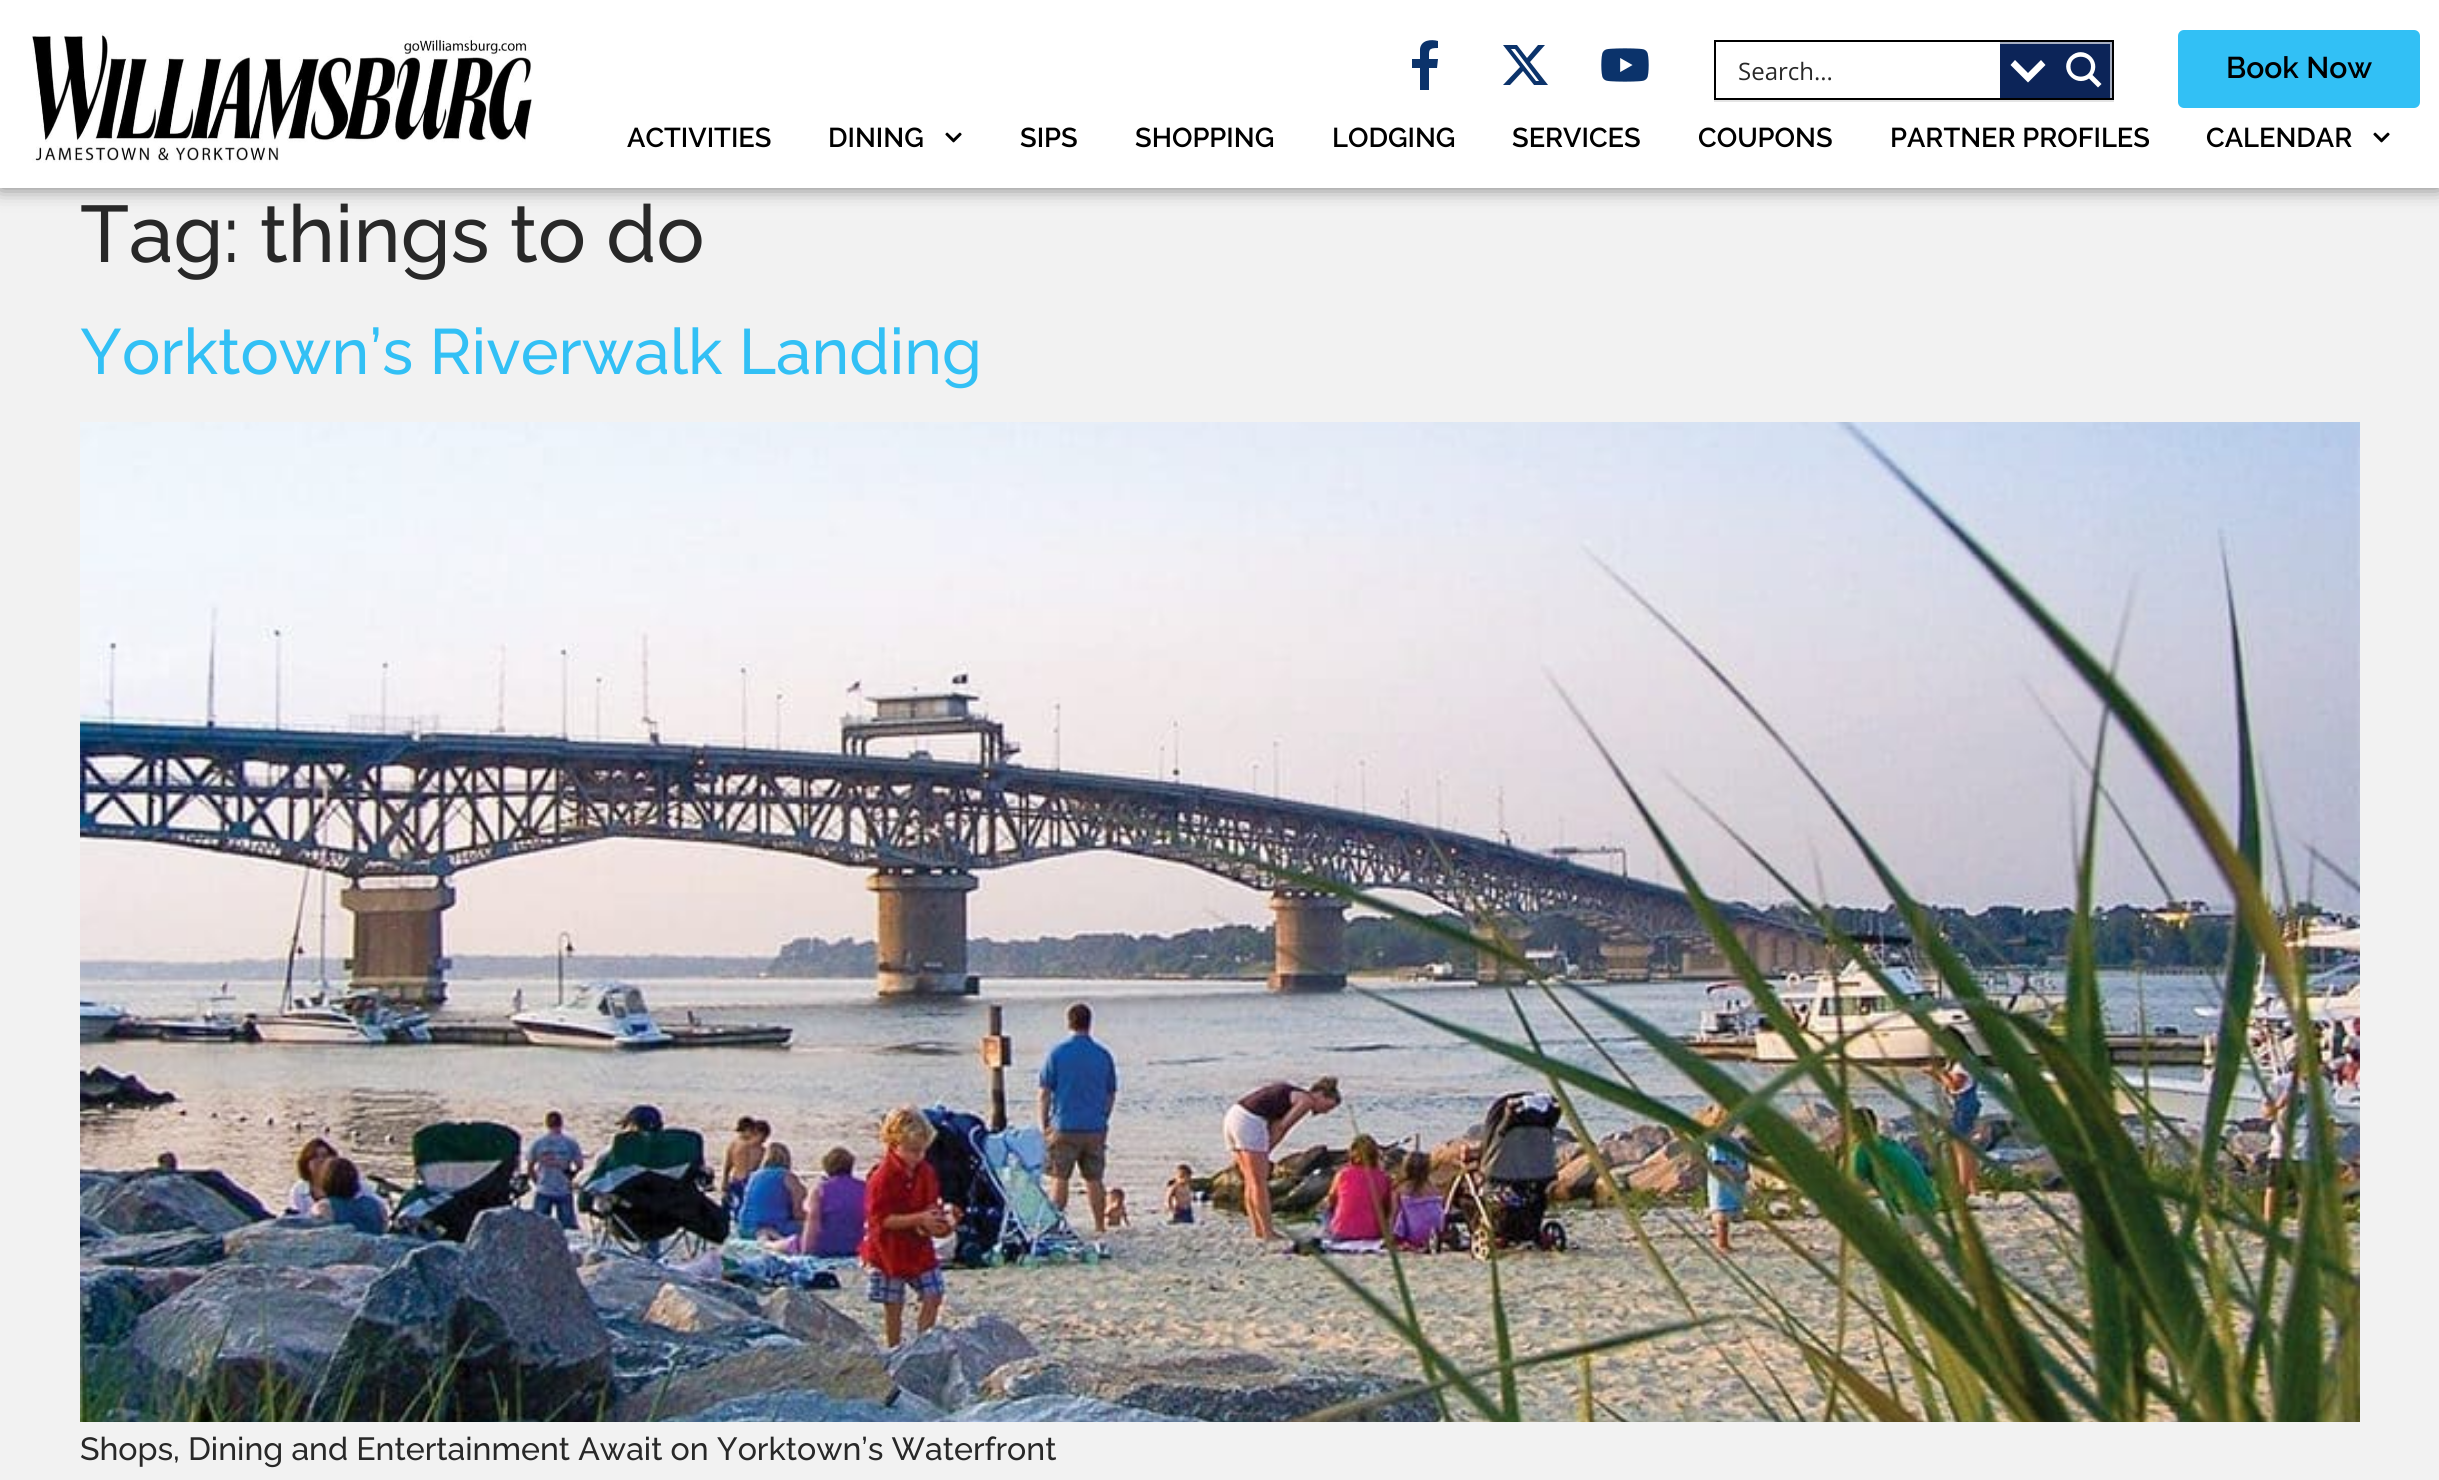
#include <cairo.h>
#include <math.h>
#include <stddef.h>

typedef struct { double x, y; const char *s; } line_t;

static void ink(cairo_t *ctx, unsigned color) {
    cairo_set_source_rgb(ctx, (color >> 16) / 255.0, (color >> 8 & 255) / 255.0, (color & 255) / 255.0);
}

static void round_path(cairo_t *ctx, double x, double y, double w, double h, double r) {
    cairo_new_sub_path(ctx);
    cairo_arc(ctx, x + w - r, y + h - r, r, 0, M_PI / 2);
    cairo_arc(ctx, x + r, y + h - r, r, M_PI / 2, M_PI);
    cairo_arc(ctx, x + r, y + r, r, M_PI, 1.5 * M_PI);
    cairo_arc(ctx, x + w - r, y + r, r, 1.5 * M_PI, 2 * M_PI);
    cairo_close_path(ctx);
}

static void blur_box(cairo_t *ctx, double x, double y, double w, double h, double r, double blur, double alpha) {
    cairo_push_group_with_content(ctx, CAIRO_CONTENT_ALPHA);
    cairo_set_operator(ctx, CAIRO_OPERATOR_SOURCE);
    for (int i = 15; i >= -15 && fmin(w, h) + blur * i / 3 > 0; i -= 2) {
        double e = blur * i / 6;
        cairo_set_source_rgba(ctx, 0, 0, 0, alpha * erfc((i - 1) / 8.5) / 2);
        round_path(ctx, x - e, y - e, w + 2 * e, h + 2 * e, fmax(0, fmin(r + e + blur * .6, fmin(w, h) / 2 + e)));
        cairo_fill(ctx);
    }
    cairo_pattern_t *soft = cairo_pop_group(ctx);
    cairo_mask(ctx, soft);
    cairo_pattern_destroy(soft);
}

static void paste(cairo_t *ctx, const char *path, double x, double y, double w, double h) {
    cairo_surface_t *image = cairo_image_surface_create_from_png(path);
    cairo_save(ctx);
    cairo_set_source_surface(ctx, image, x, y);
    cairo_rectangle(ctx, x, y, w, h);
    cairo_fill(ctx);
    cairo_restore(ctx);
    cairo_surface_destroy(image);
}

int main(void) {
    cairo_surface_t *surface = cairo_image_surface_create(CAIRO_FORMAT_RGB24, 2439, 1480);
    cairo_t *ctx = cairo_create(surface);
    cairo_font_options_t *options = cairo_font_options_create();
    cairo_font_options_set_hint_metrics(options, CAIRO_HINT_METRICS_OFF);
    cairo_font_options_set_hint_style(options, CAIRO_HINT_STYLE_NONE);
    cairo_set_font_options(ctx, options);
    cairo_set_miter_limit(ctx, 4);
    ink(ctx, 0xF2F2F2);
    cairo_paint(ctx);
    ink(ctx, 0x000000);
    blur_box(ctx, 0, 0, 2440, 188, 0, 10, 0.5);
    ink(ctx, 0xFFFFFF);
    cairo_rectangle(ctx, 0, 0, 2439, 188);
    cairo_fill(ctx);
    paste(ctx, "media/1.png", 32, 32, 500, 131);
    ink(ctx, 0x0B336B);
    cairo_new_path(ctx);
    cairo_move_to(ctx, 1437, 68);
    cairo_line_to(ctx, 1438, 59);
    cairo_line_to(ctx, 1429, 59);
    cairo_curve_to(ctx, 1429, 50, 1428, 48, 1438, 48);
    cairo_line_to(ctx, 1438, 41);
    cairo_curve_to(ctx, 1431, 39, 1421, 40, 1420, 49);
    cairo_line_to(ctx, 1420, 59);
    cairo_line_to(ctx, 1412, 59);
    cairo_line_to(ctx, 1412, 68);
    cairo_line_to(ctx, 1420, 68);
    cairo_line_to(ctx, 1420, 90);
    cairo_line_to(ctx, 1429, 90);
    cairo_line_to(ctx, 1429, 68);
    cairo_close_path(ctx);
    cairo_fill(ctx);
    cairo_new_path(ctx);
    cairo_move_to(ctx, 1538, 45);
    cairo_line_to(ctx, 1545, 45);
    cairo_line_to(ctx, 1530, 62);
    cairo_line_to(ctx, 1548, 85);
    cairo_line_to(ctx, 1534, 85);
    cairo_line_to(ctx, 1523, 71);
    cairo_line_to(ctx, 1510, 85);
    cairo_line_to(ctx, 1503, 85);
    cairo_line_to(ctx, 1520, 67);
    cairo_line_to(ctx, 1503, 45);
    cairo_line_to(ctx, 1517, 45);
    cairo_line_to(ctx, 1527, 58);
    cairo_close_path(ctx);
    cairo_move_to(ctx, 1536, 81);
    cairo_line_to(ctx, 1539, 81);
    cairo_line_to(ctx, 1515, 49);
    cairo_line_to(ctx, 1511, 49);
    cairo_close_path(ctx);
    cairo_fill(ctx);
    paste(ctx, "media/2.png", 1601, 48, 48, 34);
    ink(ctx, 0xE4E4E4);
    cairo_rectangle(ctx, 1714, 100, 400, 2);
    cairo_fill(ctx);
    cairo_rectangle(ctx, 1715, 41, 398, 58);
    ink(ctx, 0x000000);
    cairo_stroke(ctx);
    ink(ctx, 0x0C2458);
    cairo_rectangle(ctx, 2000, 44, 110, 54);
    cairo_fill(ctx);
    ink(ctx, 0xA8B0C3);
    cairo_rectangle(ctx, 2000, 42, 56, 2);
    cairo_fill(ctx);
    ink(ctx, 0xFFFFFF);
    cairo_new_path(ctx);
    cairo_move_to(ctx, 2041, 60);
    cairo_line_to(ctx, 2045.5, 65);
    cairo_line_to(ctx, 2028, 82.5);
    cairo_line_to(ctx, 2010.5, 65);
    cairo_line_to(ctx, 2015, 60);
    cairo_line_to(ctx, 2028, 73);
    cairo_close_path(ctx);
    cairo_fill(ctx);
    cairo_select_font_face(ctx, "Open Sans", CAIRO_FONT_SLANT_NORMAL, CAIRO_FONT_WEIGHT_NORMAL);
    cairo_set_font_size(ctx, 24);
    ink(ctx, 0x282828);
    cairo_move_to(ctx, 1738, 80);
    cairo_show_text(ctx, "Search...");
    cairo_save(ctx);
    cairo_rectangle(ctx, 2056, 42, 56, 56);
    cairo_clip(ctx);
    ink(ctx, 0xA8B0C3);
    cairo_set_fill_rule(ctx, CAIRO_FILL_RULE_EVEN_ODD);
    cairo_new_path(ctx);
    cairo_move_to(ctx, 1858, -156);
    cairo_line_to(ctx, 2310, -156);
    cairo_line_to(ctx, 2310, 296);
    cairo_line_to(ctx, 1858, 296);
    cairo_close_path(ctx);
    cairo_move_to(ctx, 2054, 44);
    cairo_line_to(ctx, 2110, 44);
    cairo_line_to(ctx, 2110, 100);
    cairo_line_to(ctx, 2054, 100);
    cairo_close_path(ctx);
    cairo_fill(ctx);
    cairo_restore(ctx);
    ink(ctx, 0xFFFFFF);
    cairo_new_path(ctx);
    cairo_move_to(ctx, 2101.5, 84);
    cairo_line_to(ctx, 2092.5, 75);
    cairo_curve_to(ctx, 2102.5, 61, 2083.5, 44, 2070.5, 56.5);
    cairo_curve_to(ctx, 2058, 69, 2075, 88, 2089, 78.5);
    cairo_line_to(ctx, 2098, 87.5);
    cairo_close_path(ctx);
    cairo_move_to(ctx, 2070.5, 66.5);
    cairo_curve_to(ctx, 2070.5, 53.5, 2091, 53.5, 2091, 66.5);
    cairo_curve_to(ctx, 2091, 80, 2070.5, 80, 2070.5, 66.5);
    cairo_close_path(ctx);
    cairo_fill(ctx);
    ink(ctx, 0x32C0F5);
    round_path(ctx, 2178, 30, 242, 78, 6);
    cairo_fill(ctx);
    cairo_select_font_face(ctx, "Raleway SemiBold", CAIRO_FONT_SLANT_NORMAL, CAIRO_FONT_WEIGHT_NORMAL);
    cairo_set_font_size(ctx, 30);
    ink(ctx, 0x000000);
    cairo_move_to(ctx, 2226, 78);
    cairo_show_text(ctx, "Book Now");
    cairo_set_font_size(ctx, 27.25);
    cairo_move_to(ctx, 627, 147);
    cairo_show_text(ctx, "ACTIVITIES");
    cairo_move_to(ctx, 828, 147);
    cairo_show_text(ctx, "DINING");
    paste(ctx, "media/3.png", 945, 132, 17, 11);
    {
        static const line_t items[] = {
            {1020, 147, "SIPS"},
            {1135, 147, "SHOPPING"},
            {1332, 147, "LODGING"},
            {1512, 147, "SERVICES"},
            {1698, 147, "COUPONS"},
            {1890, 147, "PARTNER PROFILES"},
            {2206, 147, "CALENDAR"},
        };
        for (size_t i = 0; i < sizeof items / sizeof *items; i++) {
            cairo_move_to(ctx, items[i].x, items[i].y);
            cairo_show_text(ctx, items[i].s);
        }
    }
    paste(ctx, "media/3.png", 2373, 132, 17, 11);
    cairo_select_font_face(ctx, "Raleway Medium", CAIRO_FONT_SLANT_NORMAL, CAIRO_FONT_WEIGHT_NORMAL);
    cairo_set_font_size(ctx, 80);
    ink(ctx, 0x282828);
    cairo_move_to(ctx, 80, 262);
    cairo_show_text(ctx, "Tag: things to do");
    cairo_set_font_size(ctx, 64);
    ink(ctx, 0x32C0F5);
    cairo_move_to(ctx, 80, 374);
    cairo_show_text(ctx, "Yorktown’s Riverwalk Landing");
    paste(ctx, "media/4.png", 80, 422, 2280, 1000);
    cairo_set_font_size(ctx, 32);
    ink(ctx, 0x282828);
    cairo_move_to(ctx, 80, 1460);
    cairo_show_text(ctx, "Shops, Dining and Entertainment Await on Yorktown’s Waterfront");
    cairo_surface_write_to_png(surface, "image.png");
    cairo_font_options_destroy(options);
    cairo_destroy(ctx);
    cairo_surface_destroy(surface);
    return 0;
}
